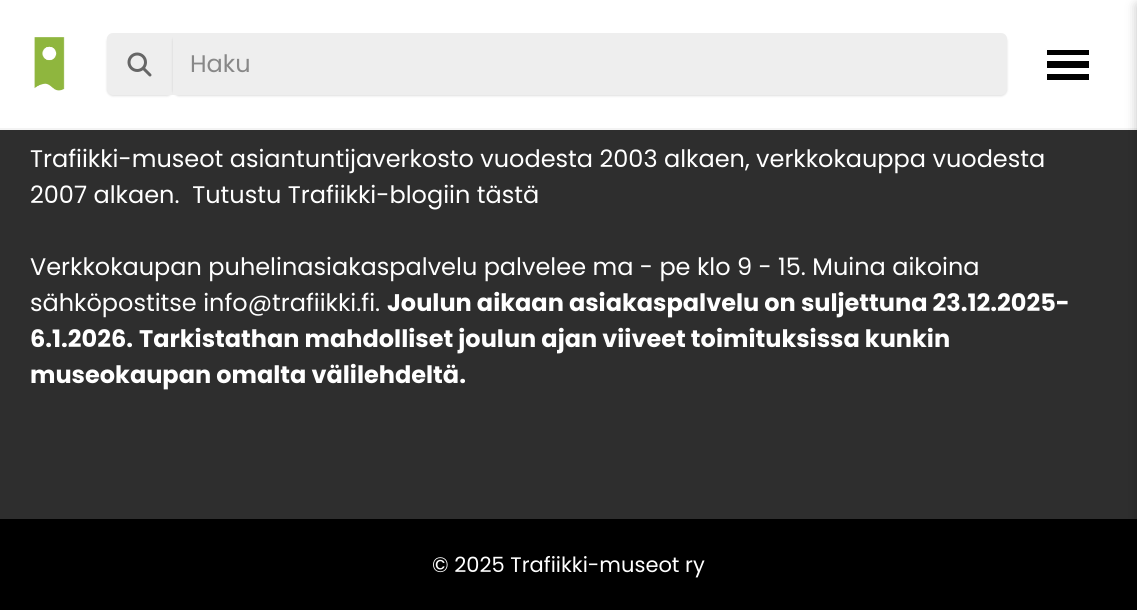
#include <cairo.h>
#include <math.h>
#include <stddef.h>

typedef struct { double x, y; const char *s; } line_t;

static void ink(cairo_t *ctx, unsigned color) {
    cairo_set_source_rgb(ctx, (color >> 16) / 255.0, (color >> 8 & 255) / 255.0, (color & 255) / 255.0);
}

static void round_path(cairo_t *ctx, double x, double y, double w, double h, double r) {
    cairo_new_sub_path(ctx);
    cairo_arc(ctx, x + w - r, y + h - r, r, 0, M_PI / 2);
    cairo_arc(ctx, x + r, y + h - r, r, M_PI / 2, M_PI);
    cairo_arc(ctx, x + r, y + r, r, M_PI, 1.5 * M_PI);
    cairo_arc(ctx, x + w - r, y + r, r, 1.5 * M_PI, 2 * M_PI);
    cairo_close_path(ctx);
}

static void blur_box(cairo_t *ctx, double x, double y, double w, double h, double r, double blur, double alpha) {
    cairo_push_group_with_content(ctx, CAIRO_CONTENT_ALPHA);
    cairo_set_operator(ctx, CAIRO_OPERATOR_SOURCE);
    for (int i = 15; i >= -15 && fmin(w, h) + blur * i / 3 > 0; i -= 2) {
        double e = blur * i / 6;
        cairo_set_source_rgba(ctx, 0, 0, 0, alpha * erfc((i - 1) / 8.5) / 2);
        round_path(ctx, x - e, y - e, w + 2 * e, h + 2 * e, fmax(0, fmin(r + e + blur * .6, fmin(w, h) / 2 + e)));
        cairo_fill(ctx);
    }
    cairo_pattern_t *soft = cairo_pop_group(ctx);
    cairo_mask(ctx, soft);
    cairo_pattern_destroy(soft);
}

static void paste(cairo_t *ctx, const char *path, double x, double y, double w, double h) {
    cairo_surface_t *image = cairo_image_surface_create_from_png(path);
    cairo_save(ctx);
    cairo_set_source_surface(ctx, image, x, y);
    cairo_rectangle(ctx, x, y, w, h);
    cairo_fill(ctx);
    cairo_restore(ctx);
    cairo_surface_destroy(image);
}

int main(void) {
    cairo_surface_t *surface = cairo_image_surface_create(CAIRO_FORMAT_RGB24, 1137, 610);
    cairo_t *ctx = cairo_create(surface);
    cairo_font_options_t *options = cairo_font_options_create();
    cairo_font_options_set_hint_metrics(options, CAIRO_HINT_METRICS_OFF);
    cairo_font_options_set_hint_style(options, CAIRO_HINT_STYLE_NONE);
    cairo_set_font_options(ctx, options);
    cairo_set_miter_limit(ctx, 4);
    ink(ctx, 0x2E2E2E);
    cairo_paint(ctx);
    ink(ctx, 0xFFFFFF);
    cairo_rectangle(ctx, 0, 0, 1137, 128);
    cairo_fill(ctx);
    ink(ctx, 0xF3F3F3);
    cairo_rectangle(ctx, 0, 128, 1137, 2);
    cairo_fill(ctx);
    paste(ctx, "media/1.png", 34, 37, 31, 54);
    ink(ctx, 0x000000);
    blur_box(ctx, 107, 35, 66, 61, 6, 1, 0.13);
    ink(ctx, 0xEEEEEE);
    cairo_new_path(ctx);
    cairo_move_to(ctx, 113, 33);
    cairo_line_to(ctx, 173, 33);
    cairo_line_to(ctx, 173, 95);
    cairo_line_to(ctx, 113, 95);
    cairo_curve_to(ctx, 109.5, 95, 107, 92.5, 107, 89);
    cairo_line_to(ctx, 107, 39);
    cairo_curve_to(ctx, 107, 35.5, 109.5, 33, 113, 33);
    cairo_close_path(ctx);
    cairo_fill(ctx);
    paste(ctx, "media/2.png", 127, 52, 25, 25);
    ink(ctx, 0x000000);
    blur_box(ctx, 173, 35, 834, 61, 6, 1, 0.13);
    ink(ctx, 0xEEEEEE);
    cairo_new_path(ctx);
    cairo_move_to(ctx, 173, 33);
    cairo_line_to(ctx, 1001, 33);
    cairo_curve_to(ctx, 1004.5, 33, 1007, 35.5, 1007, 39);
    cairo_line_to(ctx, 1007, 89);
    cairo_curve_to(ctx, 1007, 92.5, 1004.5, 95, 1001, 95);
    cairo_line_to(ctx, 173, 95);
    cairo_close_path(ctx);
    cairo_fill(ctx);
    cairo_select_font_face(ctx, "Poppins", CAIRO_FONT_SLANT_NORMAL, CAIRO_FONT_WEIGHT_NORMAL);
    cairo_set_font_size(ctx, 24);
    ink(ctx, 0x888888);
    cairo_move_to(ctx, 190, 72);
    cairo_show_text(ctx, "Haku");
    ink(ctx, 0x000000);
    cairo_new_path(ctx);
    cairo_move_to(ctx, 1047, 80);
    cairo_line_to(ctx, 1089, 80);
    cairo_line_to(ctx, 1089, 74);
    cairo_line_to(ctx, 1047, 74);
    cairo_close_path(ctx);
    cairo_move_to(ctx, 1047, 50);
    cairo_line_to(ctx, 1047, 55);
    cairo_line_to(ctx, 1089, 55);
    cairo_line_to(ctx, 1089, 50);
    cairo_close_path(ctx);
    cairo_move_to(ctx, 1047, 68);
    cairo_line_to(ctx, 1089, 68);
    cairo_line_to(ctx, 1089, 61);
    cairo_line_to(ctx, 1047, 61);
    cairo_close_path(ctx);
    cairo_fill(ctx);
    cairo_rectangle(ctx, 0, 519, 1137, 91);
    cairo_fill(ctx);
    ink(ctx, 0x000000);
    blur_box(ctx, 1137, 5, 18, 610, 0, 6, 0.24);
    ink(ctx, 0xFFFFFF);
    {
        static const line_t items[] = {
            {30, 167, "Trafiikki-museot asiantuntijaverkosto vuodesta 2003 alkaen, verkkokauppa vuodesta"},
            {30, 203, "2007 alkaen.  Tutustu Trafiikki-blogiin tästä"},
            {30, 275, "Verkkokaupan puhelinasiakaspalvelu palvelee ma - pe klo 9 - 15. Muina aikoina"},
            {30, 311, "sähköpostitse info@trafiikki.fi."},
        };
        for (size_t i = 0; i < sizeof items / sizeof *items; i++) {
            cairo_move_to(ctx, items[i].x, items[i].y);
            cairo_show_text(ctx, items[i].s);
        }
    }
    cairo_select_font_face(ctx, "Poppins", CAIRO_FONT_SLANT_NORMAL, CAIRO_FONT_WEIGHT_BOLD);
    {
        static const line_t items[] = {
            {387, 311, "Joulun aikaan asiakaspalvelu on suljettuna 23.12.2025-"},
            {30, 347, "6.1.2026."},
            {139, 347, "Tarkistathan mahdolliset joulun ajan viiveet toimituksissa kunkin"},
            {30, 383, "museokaupan omalta välilehdeltä."},
        };
        for (size_t i = 0; i < sizeof items / sizeof *items; i++) {
            cairo_move_to(ctx, items[i].x, items[i].y);
            cairo_show_text(ctx, items[i].s);
        }
    }
    cairo_select_font_face(ctx, "Poppins", CAIRO_FONT_SLANT_NORMAL, CAIRO_FONT_WEIGHT_NORMAL);
    cairo_set_font_size(ctx, 21);
    cairo_move_to(ctx, 432, 572);
    cairo_show_text(ctx, "© 2025 Trafiikki-museot ry");
    cairo_surface_write_to_png(surface, "image.png");
    cairo_font_options_destroy(options);
    cairo_destroy(ctx);
    cairo_surface_destroy(surface);
    return 0;
}
